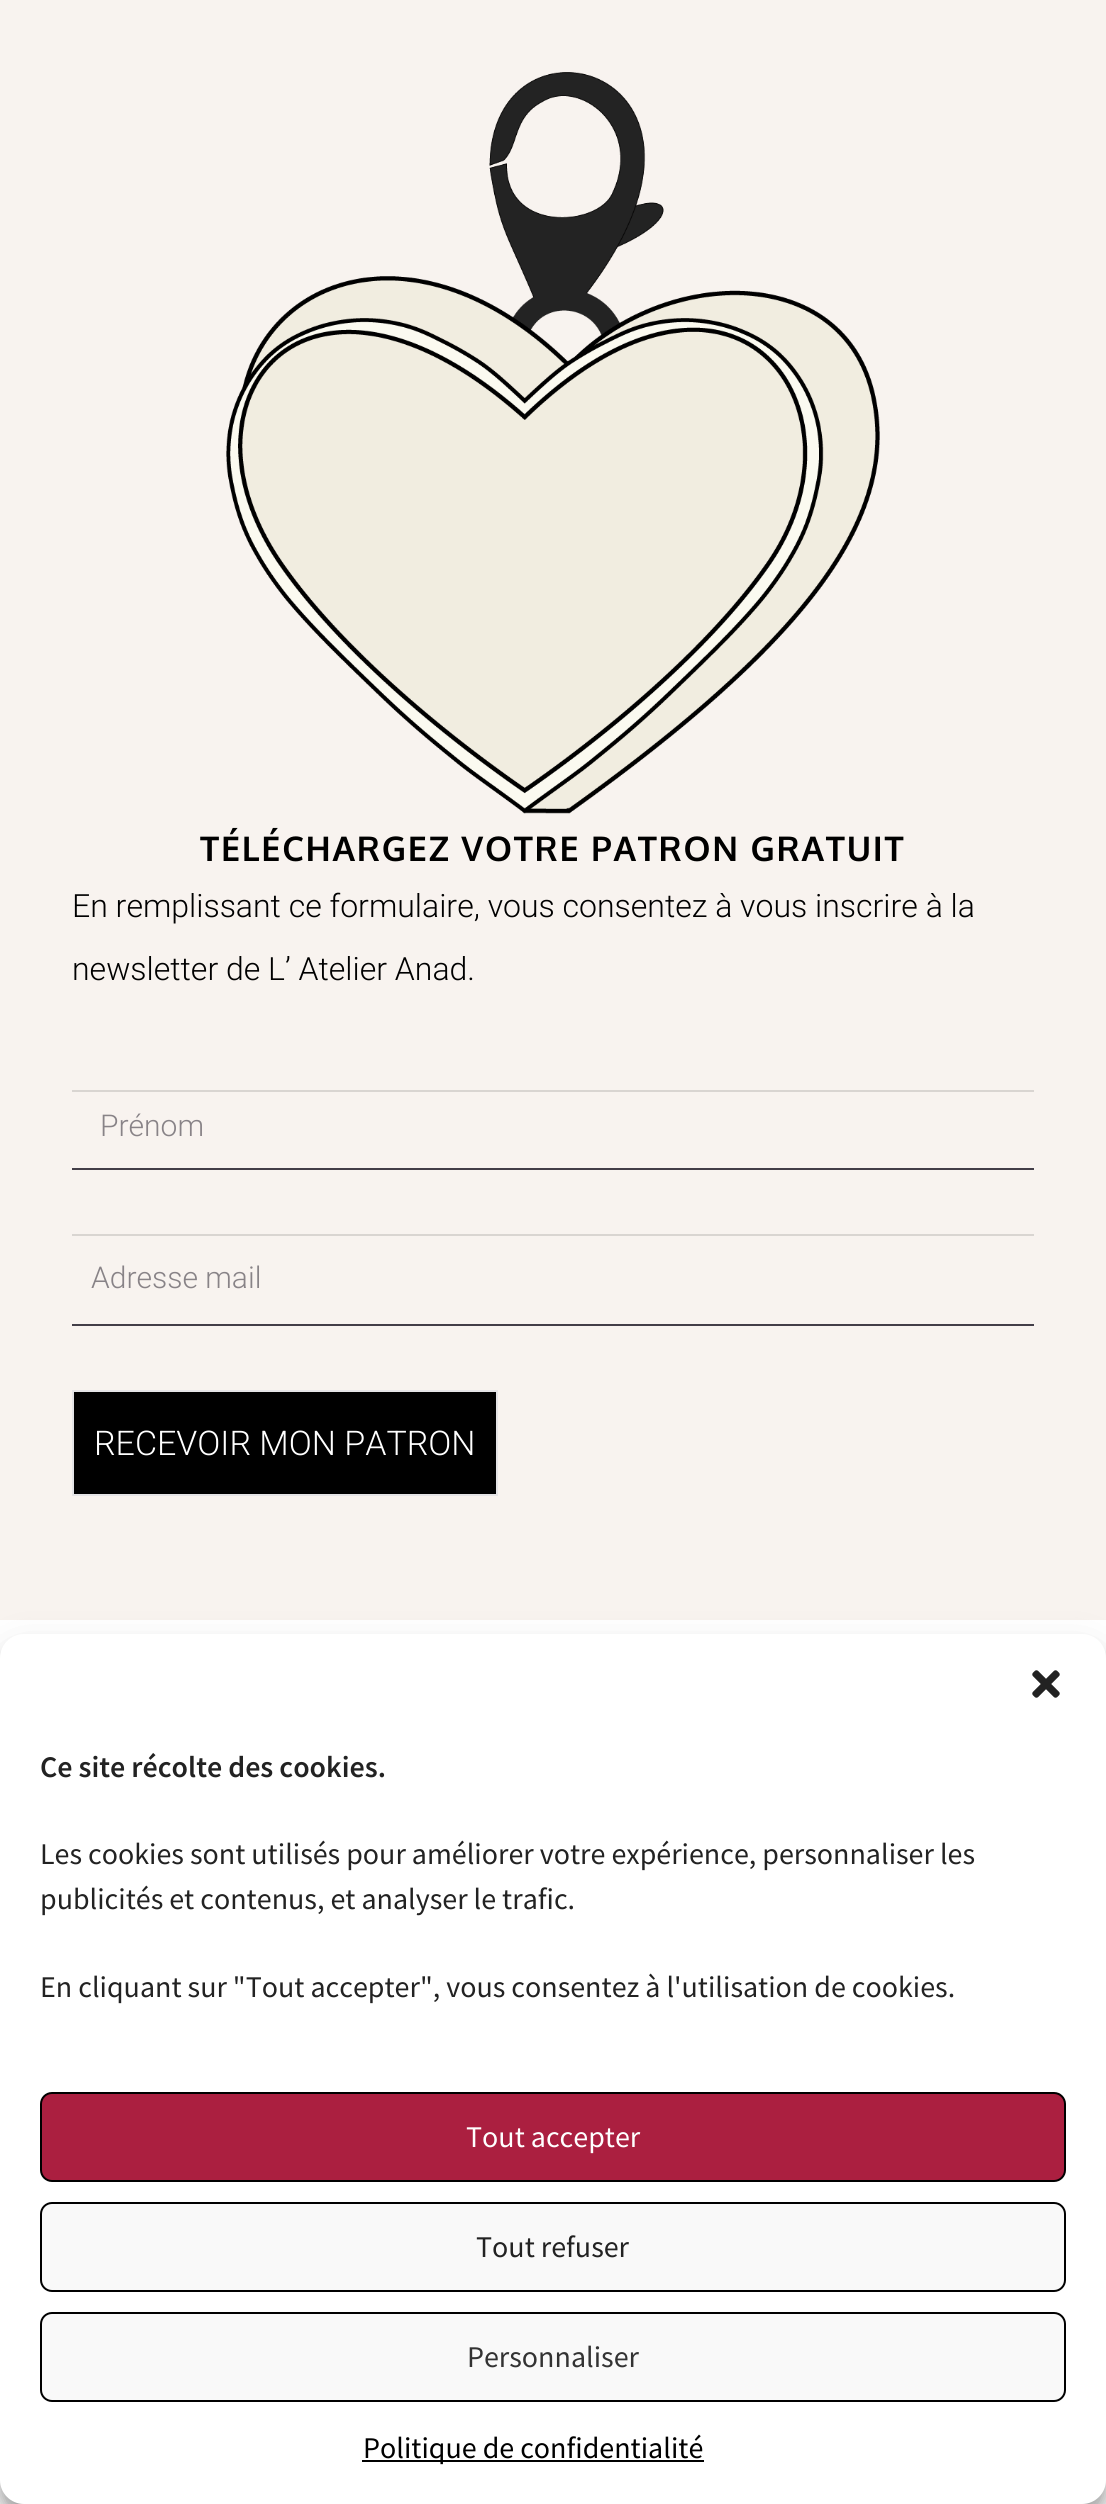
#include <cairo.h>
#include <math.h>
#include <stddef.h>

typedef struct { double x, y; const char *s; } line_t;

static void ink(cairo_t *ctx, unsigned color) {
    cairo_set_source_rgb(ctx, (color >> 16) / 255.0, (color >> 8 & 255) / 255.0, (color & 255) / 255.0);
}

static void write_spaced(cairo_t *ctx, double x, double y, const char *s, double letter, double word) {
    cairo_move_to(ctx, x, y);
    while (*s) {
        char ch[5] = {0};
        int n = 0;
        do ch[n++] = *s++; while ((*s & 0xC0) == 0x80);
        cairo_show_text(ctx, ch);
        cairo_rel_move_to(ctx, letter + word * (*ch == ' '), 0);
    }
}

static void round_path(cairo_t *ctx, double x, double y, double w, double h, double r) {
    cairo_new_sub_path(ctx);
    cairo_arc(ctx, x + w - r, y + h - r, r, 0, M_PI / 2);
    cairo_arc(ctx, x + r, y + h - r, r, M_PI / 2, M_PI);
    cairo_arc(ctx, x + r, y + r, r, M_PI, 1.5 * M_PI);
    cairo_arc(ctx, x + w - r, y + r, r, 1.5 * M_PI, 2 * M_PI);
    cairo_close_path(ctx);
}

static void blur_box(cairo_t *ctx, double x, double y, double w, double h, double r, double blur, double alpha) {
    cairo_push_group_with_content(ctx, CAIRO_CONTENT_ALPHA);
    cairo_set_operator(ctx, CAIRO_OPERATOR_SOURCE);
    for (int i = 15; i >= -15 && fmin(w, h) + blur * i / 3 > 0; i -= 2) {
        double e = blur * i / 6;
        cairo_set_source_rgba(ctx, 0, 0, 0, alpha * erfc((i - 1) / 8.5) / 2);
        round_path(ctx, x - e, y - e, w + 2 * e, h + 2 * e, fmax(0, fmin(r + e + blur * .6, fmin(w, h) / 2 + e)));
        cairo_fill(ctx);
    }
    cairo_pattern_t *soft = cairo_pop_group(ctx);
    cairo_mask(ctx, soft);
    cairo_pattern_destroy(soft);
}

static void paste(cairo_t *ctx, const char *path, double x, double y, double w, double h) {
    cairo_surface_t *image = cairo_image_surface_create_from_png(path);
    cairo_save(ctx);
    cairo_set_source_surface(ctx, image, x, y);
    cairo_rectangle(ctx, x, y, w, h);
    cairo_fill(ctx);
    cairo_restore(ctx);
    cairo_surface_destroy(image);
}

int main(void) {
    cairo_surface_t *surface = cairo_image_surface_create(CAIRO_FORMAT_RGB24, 1106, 2504);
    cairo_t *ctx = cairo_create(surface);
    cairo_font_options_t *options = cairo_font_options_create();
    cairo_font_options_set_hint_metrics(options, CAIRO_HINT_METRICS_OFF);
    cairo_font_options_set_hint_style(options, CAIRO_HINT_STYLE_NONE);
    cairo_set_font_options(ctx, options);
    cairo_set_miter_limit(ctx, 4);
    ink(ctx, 0xFFFFFF);
    cairo_paint(ctx);
    ink(ctx, 0xF8F3EF);
    cairo_rectangle(ctx, 0, 0, 1106, 1620);
    cairo_fill(ctx);
    paste(ctx, "media/1.png", 226, 72, 654, 742);
    cairo_select_font_face(ctx, "Oxygen", CAIRO_FONT_SLANT_NORMAL, CAIRO_FONT_WEIGHT_BOLD);
    cairo_set_font_size(ctx, 34);
    ink(ctx, 0x000000);
    write_spaced(ctx, 200, 861, "TÉLÉCHARGEZ VOTRE PATRON GRATUIT", 1.75, 0);
    cairo_select_font_face(ctx, "Roboto Light", CAIRO_FONT_SLANT_NORMAL, CAIRO_FONT_WEIGHT_NORMAL);
    cairo_set_font_size(ctx, 32);
    cairo_move_to(ctx, 72, 917);
    cairo_show_text(ctx, "En remplissant ce formulaire, vous consentez à vous inscrire à la");
    cairo_move_to(ctx, 72, 980);
    cairo_show_text(ctx, "newsletter de L’ Atelier Anad.");
    ink(ctx, 0xD9D5D1);
    cairo_rectangle(ctx, 72, 1090, 962, 2);
    cairo_fill(ctx);
    ink(ctx, 0x433E48);
    cairo_rectangle(ctx, 72, 1168, 962, 2);
    cairo_fill(ctx);
    cairo_set_font_size(ctx, 30);
    ink(ctx, 0x888387);
    cairo_move_to(ctx, 100, 1136);
    cairo_show_text(ctx, "Prénom");
    ink(ctx, 0xD9D5D1);
    cairo_rectangle(ctx, 72, 1234, 962, 2);
    cairo_fill(ctx);
    ink(ctx, 0x433E48);
    cairo_rectangle(ctx, 72, 1324, 962, 2);
    cairo_fill(ctx);
    ink(ctx, 0x888387);
    cairo_move_to(ctx, 91, 1288);
    cairo_show_text(ctx, "Adresse mail");
    ink(ctx, 0x000000);
    cairo_rectangle(ctx, 73, 1391, 424, 104);
    cairo_fill_preserve(ctx);
    ink(ctx, 0xE5E4E6);
    cairo_stroke(ctx);
    cairo_set_font_size(ctx, 34);
    ink(ctx, 0xFFFFFF);
    cairo_move_to(ctx, 94, 1455);
    cairo_show_text(ctx, "RECEVOIR MON PATRON");
    ink(ctx, 0x000000);
    blur_box(ctx, 0, 1646, 1106, 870, 24, 6, 0.23);
    blur_box(ctx, 0, 1654, 1106, 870, 24, 20, 0.19);
    ink(ctx, 0xFFFFFF);
    round_path(ctx, 0, 1634, 1106, 870, 24);
    cairo_fill(ctx);
    paste(ctx, "media/2.png", 1032, 1670, 28, 28);
    cairo_select_font_face(ctx, "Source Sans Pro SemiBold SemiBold", CAIRO_FONT_SLANT_NORMAL, CAIRO_FONT_WEIGHT_NORMAL);
    cairo_set_font_size(ctx, 30);
    ink(ctx, 0x222222);
    cairo_move_to(ctx, 40, 1777);
    cairo_show_text(ctx, "Ce site récolte des cookies.");
    cairo_select_font_face(ctx, "Source Sans Pro", CAIRO_FONT_SLANT_NORMAL, CAIRO_FONT_WEIGHT_NORMAL);
    {
        static const line_t items[] = {
            {40, 1864, "Les cookies sont utilisés pour améliorer votre expérience, personnaliser les"},
            {40, 1909, "publicités et contenus, et analyser le trafic."},
            {40, 1997, "En cliquant sur \"Tout accepter\", vous consentez à l'utilisation de cookies."},
        };
        for (size_t i = 0; i < sizeof items / sizeof *items; i++) {
            cairo_move_to(ctx, items[i].x, items[i].y);
            cairo_show_text(ctx, items[i].s);
        }
    }
    ink(ctx, 0xAB1F40);
    round_path(ctx, 41, 2093, 1024, 88, 11);
    cairo_fill_preserve(ctx);
    ink(ctx, 0x000000);
    cairo_stroke(ctx);
    ink(ctx, 0xFFFFFF);
    cairo_move_to(ctx, 466, 2147);
    cairo_show_text(ctx, "Tout accepter");
    ink(ctx, 0xF9F9F9);
    round_path(ctx, 41, 2203, 1024, 88, 11);
    cairo_fill_preserve(ctx);
    ink(ctx, 0x000000);
    cairo_stroke(ctx);
    ink(ctx, 0x222222);
    cairo_move_to(ctx, 476, 2257);
    cairo_show_text(ctx, "Tout refuser");
    ink(ctx, 0xF9F9F9);
    round_path(ctx, 41, 2313, 1024, 88, 11);
    cairo_fill_preserve(ctx);
    ink(ctx, 0x000000);
    cairo_stroke(ctx);
    ink(ctx, 0x333333);
    cairo_move_to(ctx, 467, 2367);
    cairo_show_text(ctx, "Personnaliser");
    ink(ctx, 0x000000);
    cairo_rectangle(ctx, 362, 2460, 342, 2);
    cairo_fill(ctx);
    cairo_move_to(ctx, 363, 2458);
    cairo_show_text(ctx, "Politique de confidentialité");
    cairo_surface_write_to_png(surface, "image.png");
    cairo_font_options_destroy(options);
    cairo_destroy(ctx);
    cairo_surface_destroy(surface);
    return 0;
}
